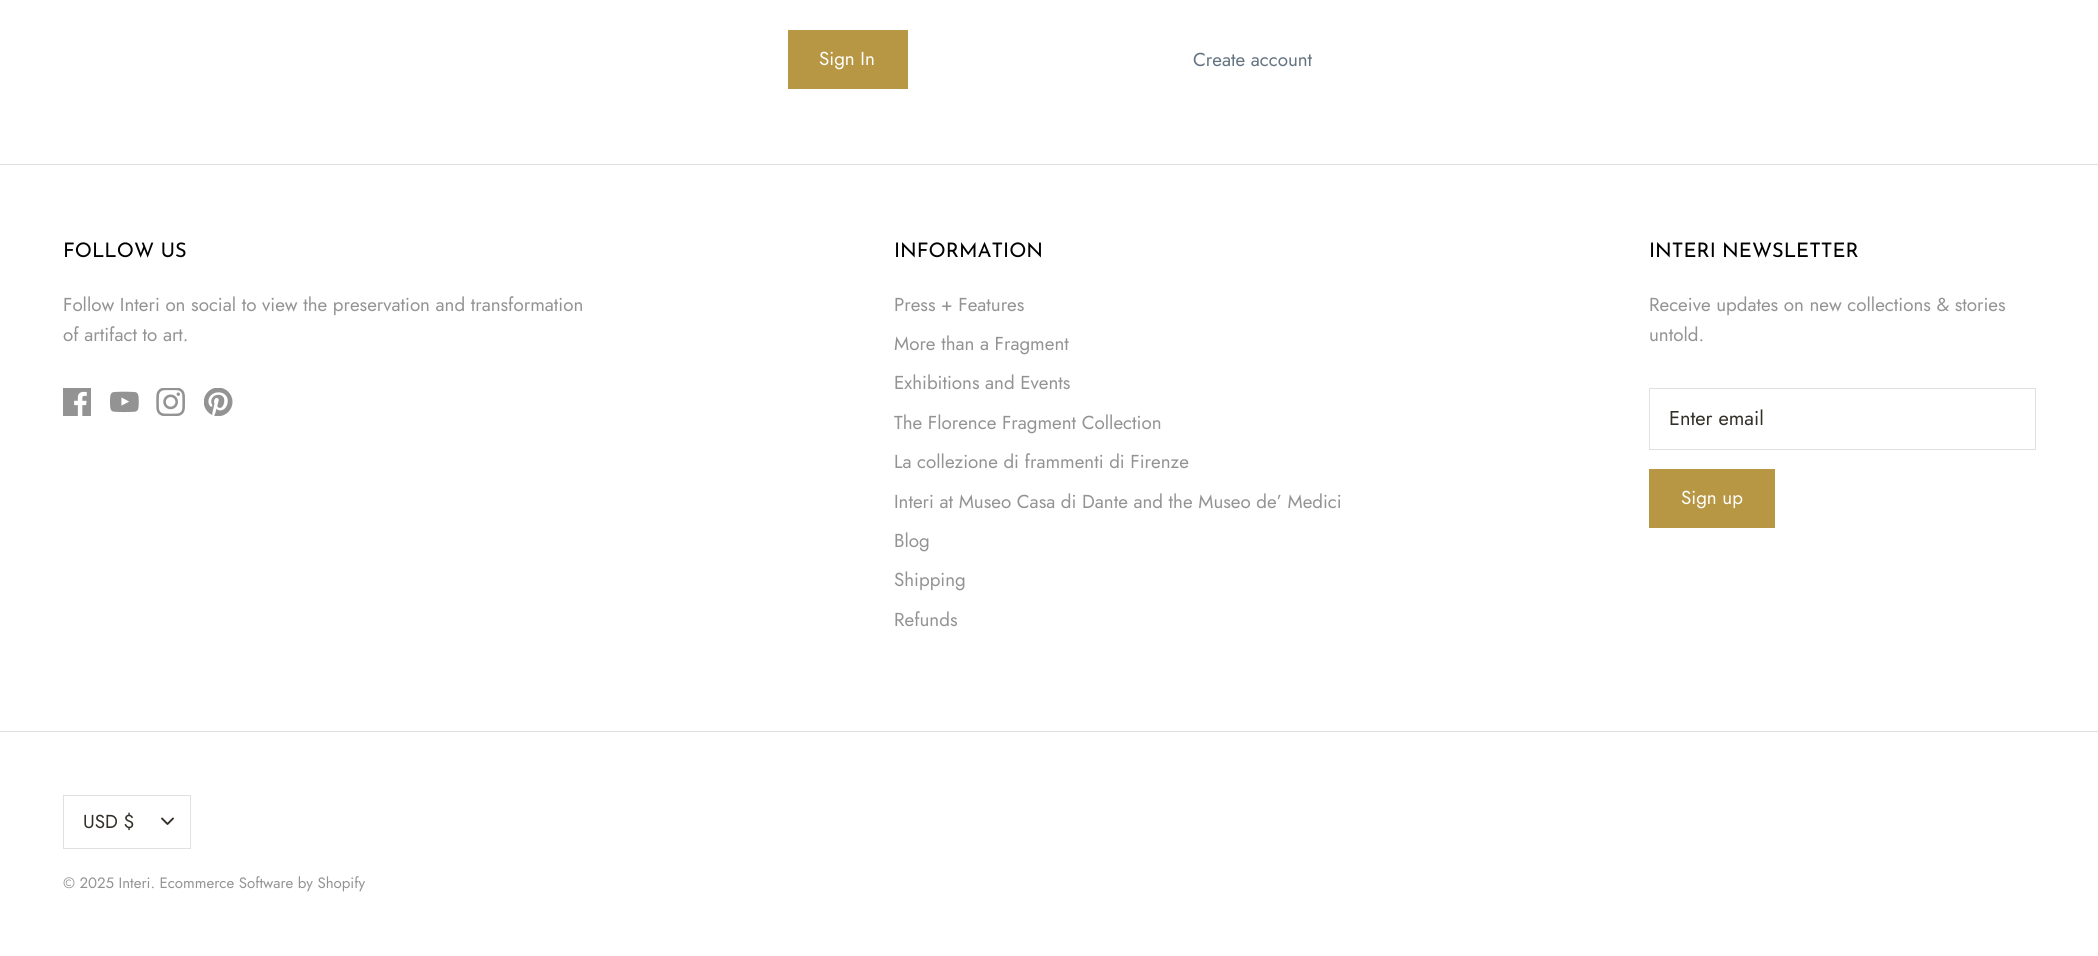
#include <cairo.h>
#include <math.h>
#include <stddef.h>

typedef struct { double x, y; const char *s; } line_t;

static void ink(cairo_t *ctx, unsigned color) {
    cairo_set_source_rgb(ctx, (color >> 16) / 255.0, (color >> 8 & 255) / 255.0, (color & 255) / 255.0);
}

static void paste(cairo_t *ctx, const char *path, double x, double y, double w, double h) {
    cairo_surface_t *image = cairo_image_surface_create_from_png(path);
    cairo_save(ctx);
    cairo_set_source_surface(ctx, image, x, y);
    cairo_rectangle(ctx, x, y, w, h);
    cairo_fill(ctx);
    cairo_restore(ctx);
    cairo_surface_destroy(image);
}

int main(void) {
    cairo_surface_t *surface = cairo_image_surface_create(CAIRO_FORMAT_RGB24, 2098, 956);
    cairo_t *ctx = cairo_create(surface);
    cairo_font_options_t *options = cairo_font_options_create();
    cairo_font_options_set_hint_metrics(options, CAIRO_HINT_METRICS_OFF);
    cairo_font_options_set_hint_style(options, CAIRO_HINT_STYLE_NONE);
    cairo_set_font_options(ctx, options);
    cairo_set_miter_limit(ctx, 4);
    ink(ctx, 0xFFFFFF);
    cairo_paint(ctx);
    ink(ctx, 0xB79644);
    cairo_rectangle(ctx, 788, 30, 120, 59);
    cairo_fill(ctx);
    cairo_select_font_face(ctx, "Jost", CAIRO_FONT_SLANT_NORMAL, CAIRO_FONT_WEIGHT_NORMAL);
    cairo_set_font_size(ctx, 18.75);
    ink(ctx, 0xFFFFFF);
    cairo_move_to(ctx, 819, 65);
    cairo_show_text(ctx, "Sign In");
    ink(ctx, 0x637381);
    cairo_move_to(ctx, 1193, 66);
    cairo_show_text(ctx, "Create account");
    ink(ctx, 0xE0E0E0);
    cairo_rectangle(ctx, 0, 164, 2098, 1);
    cairo_fill(ctx);
    cairo_select_font_face(ctx, "Josefin Sans", CAIRO_FONT_SLANT_NORMAL, CAIRO_FONT_WEIGHT_NORMAL);
    cairo_set_font_size(ctx, 20);
    ink(ctx, 0x000000);
    cairo_move_to(ctx, 63, 257);
    cairo_show_text(ctx, "FOLLOW US");
    cairo_select_font_face(ctx, "Jost", CAIRO_FONT_SLANT_NORMAL, CAIRO_FONT_WEIGHT_NORMAL);
    cairo_set_font_size(ctx, 18.75);
    ink(ctx, 0x939393);
    cairo_move_to(ctx, 63, 311);
    cairo_show_text(ctx, "Follow Interi on social to view the preservation and transformation");
    cairo_move_to(ctx, 63, 341);
    cairo_show_text(ctx, "of artifact to art.");
    paste(ctx, "media/1.png", 63, 388, 28, 28);
    paste(ctx, "media/2.png", 110, 391, 29, 22);
    paste(ctx, "media/3.png", 156, 388, 29, 28);
    paste(ctx, "media/4.png", 204, 388, 29, 28);
    cairo_select_font_face(ctx, "Josefin Sans", CAIRO_FONT_SLANT_NORMAL, CAIRO_FONT_WEIGHT_NORMAL);
    cairo_set_font_size(ctx, 20);
    ink(ctx, 0x000000);
    cairo_move_to(ctx, 894, 257);
    cairo_show_text(ctx, "INFORMATION");
    cairo_select_font_face(ctx, "Jost", CAIRO_FONT_SLANT_NORMAL, CAIRO_FONT_WEIGHT_NORMAL);
    cairo_set_font_size(ctx, 18.75);
    ink(ctx, 0x939393);
    {
        static const line_t items[] = {
            {894, 311, "Press + Features"},
            {894, 350, "More than a Fragment"},
            {894, 389, "Exhibitions and Events"},
            {894, 429, "The Florence Fragment Collection"},
            {894, 468, "La collezione di frammenti di Firenze"},
            {894, 508, "Interi at Museo Casa di Dante and the Museo de’ Medici"},
            {894, 547, "Blog"},
            {894, 586, "Shipping"},
            {894, 626, "Refunds"},
        };
        for (size_t i = 0; i < sizeof items / sizeof *items; i++) {
            cairo_move_to(ctx, items[i].x, items[i].y);
            cairo_show_text(ctx, items[i].s);
        }
    }
    cairo_select_font_face(ctx, "Josefin Sans", CAIRO_FONT_SLANT_NORMAL, CAIRO_FONT_WEIGHT_NORMAL);
    cairo_set_font_size(ctx, 20);
    ink(ctx, 0x000000);
    cairo_move_to(ctx, 1649, 257);
    cairo_show_text(ctx, "INTERI NEWSLETTER");
    cairo_select_font_face(ctx, "Jost", CAIRO_FONT_SLANT_NORMAL, CAIRO_FONT_WEIGHT_NORMAL);
    cairo_set_font_size(ctx, 18.75);
    ink(ctx, 0x939393);
    cairo_move_to(ctx, 1649, 311);
    cairo_show_text(ctx, "Receive updates on new collections & stories");
    cairo_move_to(ctx, 1649, 341);
    cairo_show_text(ctx, "untold.");
    cairo_rectangle(ctx, 1649.5, 388.5, 386, 61);
    ink(ctx, 0xE0E0DF);
    cairo_set_line_width(ctx, 1);
    cairo_stroke(ctx);
    cairo_set_font_size(ctx, 20);
    ink(ctx, 0x333029);
    cairo_move_to(ctx, 1669, 425);
    cairo_show_text(ctx, "Enter email");
    ink(ctx, 0xB79644);
    cairo_rectangle(ctx, 1649, 469, 126, 59);
    cairo_fill(ctx);
    cairo_set_font_size(ctx, 18.75);
    ink(ctx, 0xFFFFFF);
    cairo_move_to(ctx, 1681, 504);
    cairo_show_text(ctx, "Sign up");
    ink(ctx, 0xE0E0E0);
    cairo_rectangle(ctx, 0, 731, 2098, 1);
    cairo_fill(ctx);
    cairo_rectangle(ctx, 63.5, 795.5, 127, 53);
    ink(ctx, 0xE0E0DF);
    cairo_stroke(ctx);
    ink(ctx, 0x333029);
    cairo_move_to(ctx, 83, 828);
    cairo_show_text(ctx, "USD $");
    cairo_new_path(ctx);
    cairo_move_to(ctx, 162, 818.5);
    cairo_line_to(ctx, 167.5, 824);
    cairo_line_to(ctx, 173, 818.5);
    cairo_set_line_width(ctx, 1.9);
    cairo_set_line_cap(ctx, CAIRO_LINE_CAP_ROUND);
    cairo_set_line_join(ctx, CAIRO_LINE_JOIN_ROUND);
    cairo_stroke(ctx);
    cairo_set_font_size(ctx, 15);
    ink(ctx, 0x939393);
    cairo_move_to(ctx, 63, 888);
    cairo_show_text(ctx, "© 2025 Interi. Ecommerce Software by Shopify");
    cairo_surface_write_to_png(surface, "image.png");
    cairo_font_options_destroy(options);
    cairo_destroy(ctx);
    cairo_surface_destroy(surface);
    return 0;
}
